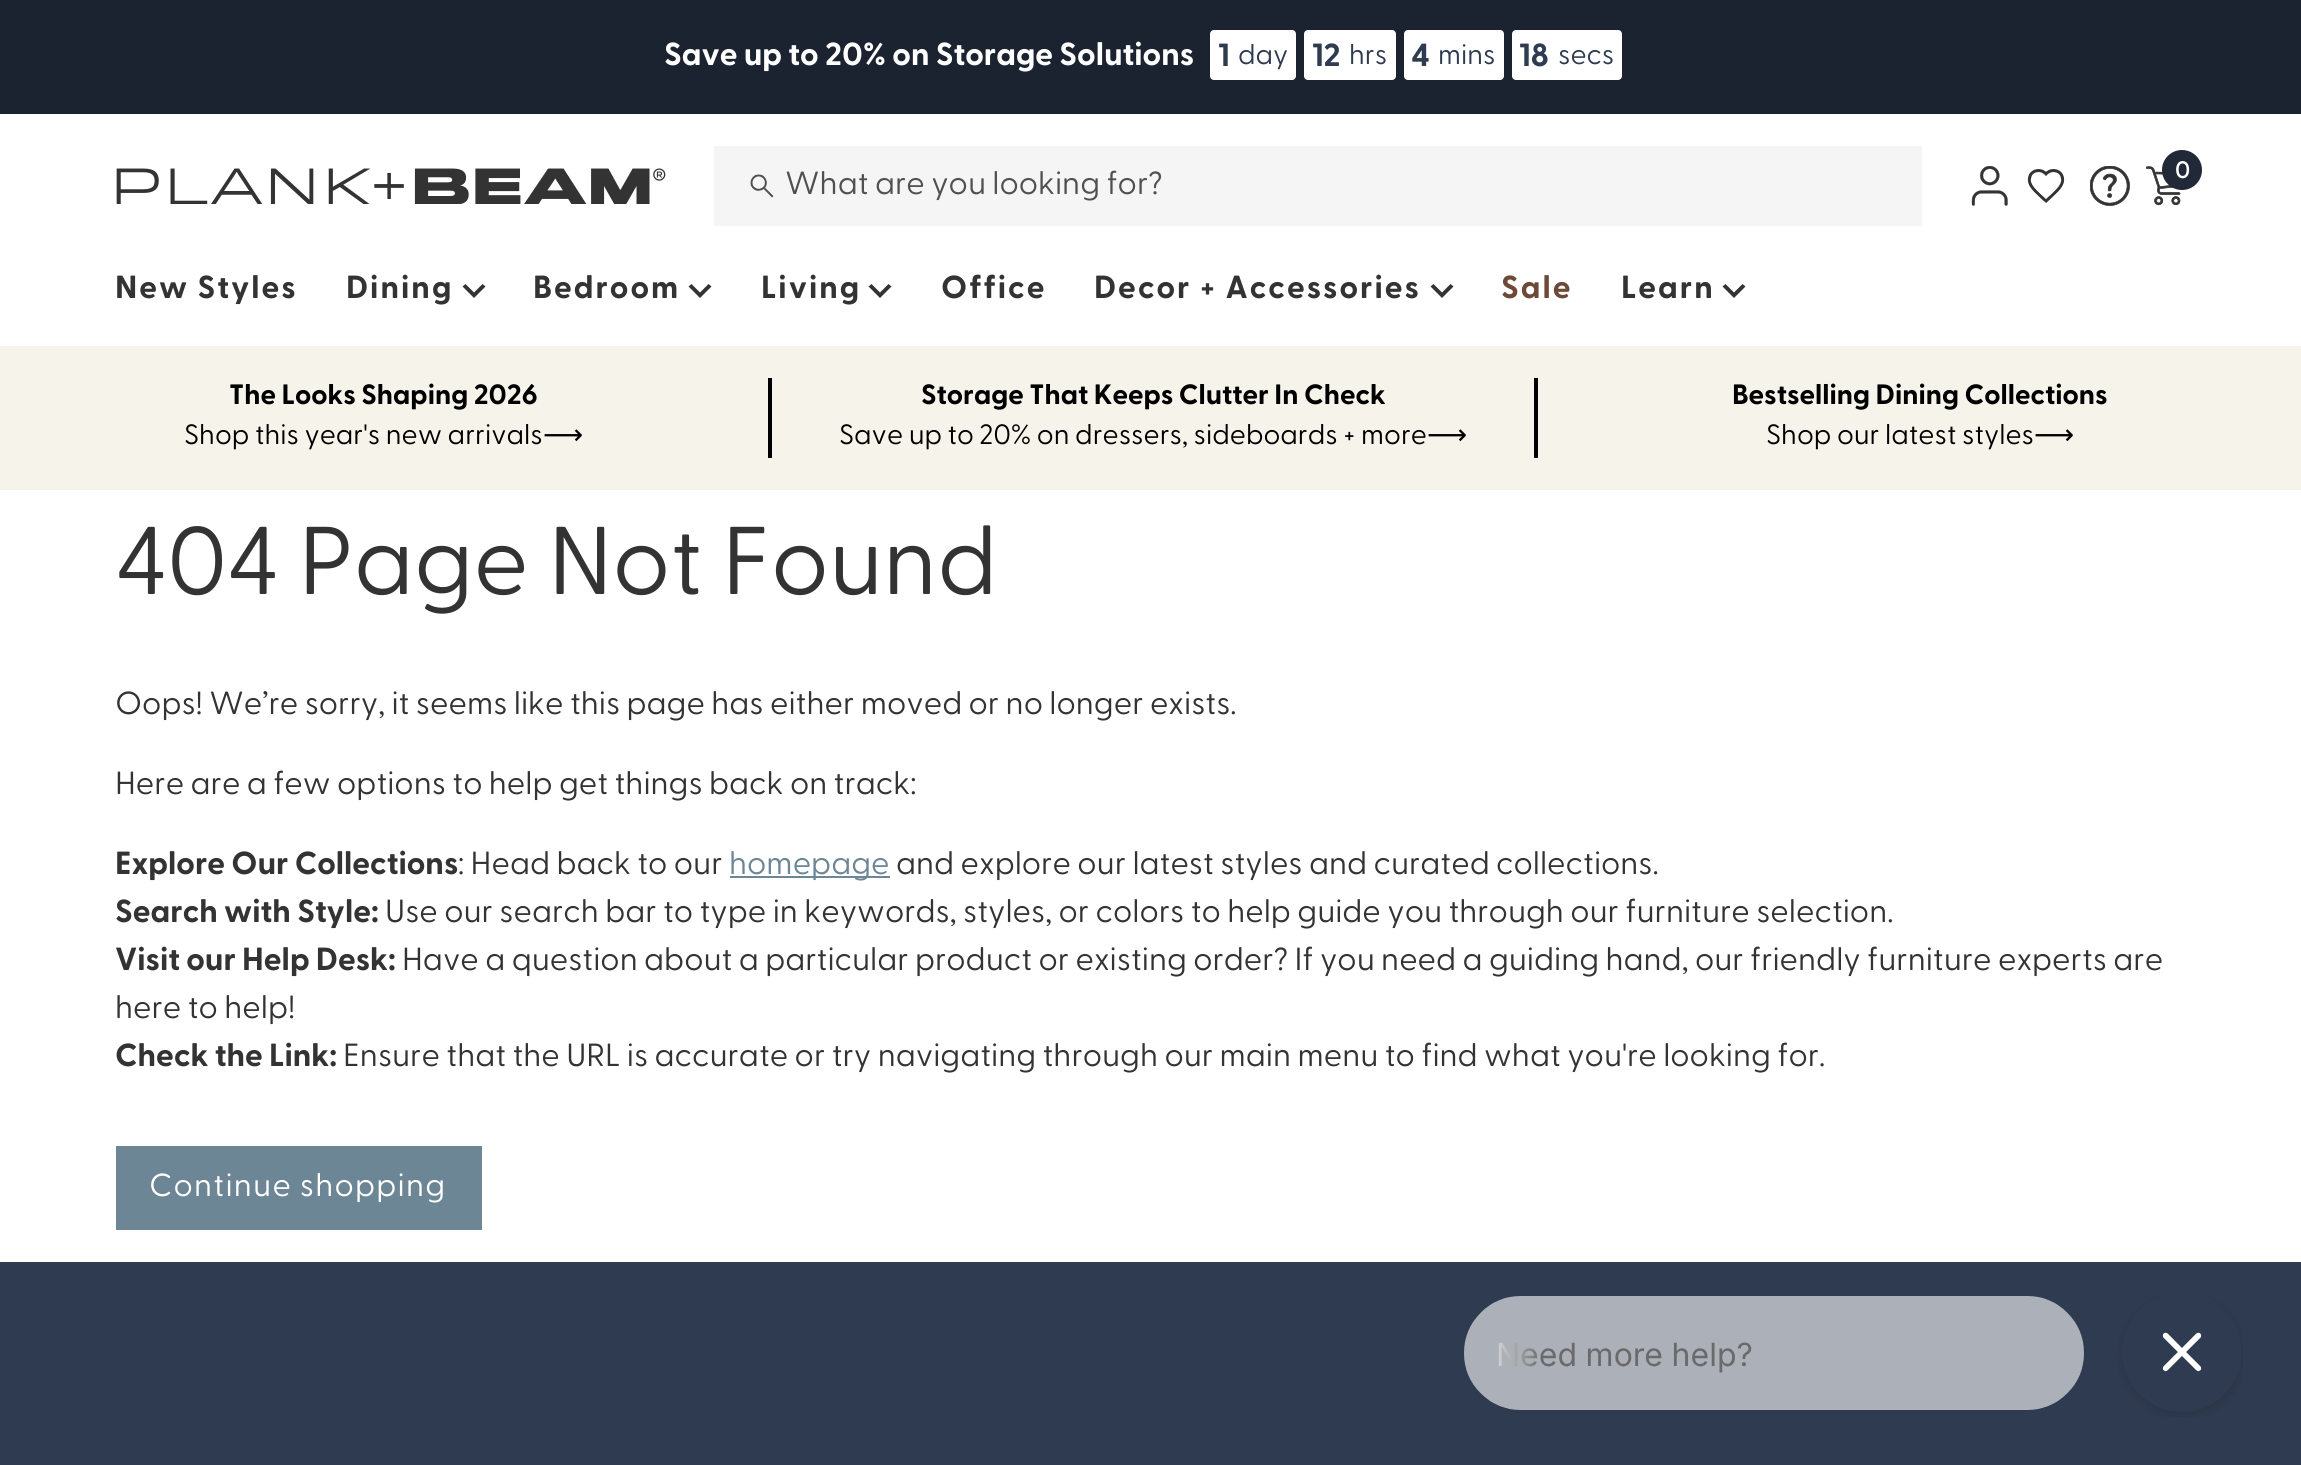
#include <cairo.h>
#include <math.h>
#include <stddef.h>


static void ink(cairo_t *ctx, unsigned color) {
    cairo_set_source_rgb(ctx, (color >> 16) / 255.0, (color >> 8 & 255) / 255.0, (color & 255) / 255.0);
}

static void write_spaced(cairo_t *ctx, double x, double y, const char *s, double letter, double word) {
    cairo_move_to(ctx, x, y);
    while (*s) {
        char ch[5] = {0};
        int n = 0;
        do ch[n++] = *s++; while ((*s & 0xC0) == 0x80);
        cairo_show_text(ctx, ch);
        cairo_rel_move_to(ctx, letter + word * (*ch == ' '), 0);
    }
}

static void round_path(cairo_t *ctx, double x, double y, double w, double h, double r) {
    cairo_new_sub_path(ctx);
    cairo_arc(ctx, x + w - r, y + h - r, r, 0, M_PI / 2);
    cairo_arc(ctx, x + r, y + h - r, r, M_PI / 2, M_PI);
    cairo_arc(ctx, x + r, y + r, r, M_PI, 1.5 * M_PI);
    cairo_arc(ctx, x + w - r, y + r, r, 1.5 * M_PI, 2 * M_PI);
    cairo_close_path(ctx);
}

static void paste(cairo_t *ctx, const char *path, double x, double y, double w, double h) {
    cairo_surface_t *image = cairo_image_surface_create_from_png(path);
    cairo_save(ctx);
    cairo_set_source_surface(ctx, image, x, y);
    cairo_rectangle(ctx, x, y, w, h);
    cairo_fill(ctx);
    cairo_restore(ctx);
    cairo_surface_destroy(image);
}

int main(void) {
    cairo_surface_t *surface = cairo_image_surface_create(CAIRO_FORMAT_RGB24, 2301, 1465);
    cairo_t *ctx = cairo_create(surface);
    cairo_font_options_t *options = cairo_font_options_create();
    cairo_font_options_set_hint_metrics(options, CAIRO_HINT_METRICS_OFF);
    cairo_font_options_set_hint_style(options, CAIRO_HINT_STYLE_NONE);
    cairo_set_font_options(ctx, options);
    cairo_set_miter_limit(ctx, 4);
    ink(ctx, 0xFFFFFF);
    cairo_paint(ctx);
    ink(ctx, 0x1C2330);
    cairo_rectangle(ctx, 0, 0, 2301, 114);
    cairo_fill(ctx);
    cairo_select_font_face(ctx, "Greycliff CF", CAIRO_FONT_SLANT_NORMAL, CAIRO_FONT_WEIGHT_BOLD);
    cairo_set_font_size(ctx, 32);
    ink(ctx, 0xFFFFFF);
    cairo_move_to(ctx, 664, 65);
    cairo_show_text(ctx, "Save up to 20% on Storage Solutions");
    round_path(ctx, 1210, 30, 86, 50, 4);
    cairo_fill(ctx);
    ink(ctx, 0x2F3B50);
    cairo_move_to(ctx, 1218, 66);
    cairo_show_text(ctx, "1");
    cairo_select_font_face(ctx, "Greycliff CF", CAIRO_FONT_SLANT_NORMAL, CAIRO_FONT_WEIGHT_NORMAL);
    cairo_set_font_size(ctx, 28);
    cairo_move_to(ctx, 1238, 64);
    cairo_show_text(ctx, "day");
    ink(ctx, 0xFFFFFF);
    round_path(ctx, 1304, 30, 92, 50, 4);
    cairo_fill(ctx);
    cairo_select_font_face(ctx, "Greycliff CF", CAIRO_FONT_SLANT_NORMAL, CAIRO_FONT_WEIGHT_BOLD);
    cairo_set_font_size(ctx, 32);
    ink(ctx, 0x2F3B50);
    cairo_move_to(ctx, 1312, 66);
    cairo_show_text(ctx, "12");
    cairo_select_font_face(ctx, "Greycliff CF", CAIRO_FONT_SLANT_NORMAL, CAIRO_FONT_WEIGHT_NORMAL);
    cairo_set_font_size(ctx, 28);
    cairo_move_to(ctx, 1349, 64);
    cairo_show_text(ctx, "hrs");
    ink(ctx, 0xFFFFFF);
    round_path(ctx, 1404, 30, 100, 50, 4);
    cairo_fill(ctx);
    cairo_select_font_face(ctx, "Greycliff CF", CAIRO_FONT_SLANT_NORMAL, CAIRO_FONT_WEIGHT_BOLD);
    cairo_set_font_size(ctx, 32);
    ink(ctx, 0x2F3B50);
    cairo_move_to(ctx, 1411, 66);
    cairo_show_text(ctx, "4");
    cairo_select_font_face(ctx, "Greycliff CF", CAIRO_FONT_SLANT_NORMAL, CAIRO_FONT_WEIGHT_NORMAL);
    cairo_set_font_size(ctx, 28);
    cairo_move_to(ctx, 1438, 64);
    cairo_show_text(ctx, "mins");
    ink(ctx, 0xFFFFFF);
    round_path(ctx, 1512, 30, 110, 50, 4);
    cairo_fill(ctx);
    cairo_select_font_face(ctx, "Greycliff CF", CAIRO_FONT_SLANT_NORMAL, CAIRO_FONT_WEIGHT_BOLD);
    cairo_set_font_size(ctx, 32);
    ink(ctx, 0x2F3B50);
    cairo_move_to(ctx, 1519, 66);
    cairo_show_text(ctx, "18");
    cairo_select_font_face(ctx, "Greycliff CF", CAIRO_FONT_SLANT_NORMAL, CAIRO_FONT_WEIGHT_NORMAL);
    cairo_set_font_size(ctx, 28);
    cairo_move_to(ctx, 1558, 64);
    cairo_show_text(ctx, "secs");
    paste(ctx, "media/1.png", 116, 168, 550, 36);
    ink(ctx, 0xF5F5F5);
    cairo_rectangle(ctx, 714, 146, 1208, 80);
    cairo_fill(ctx);
    paste(ctx, "media/2.png", 750, 174, 24, 24);
    cairo_set_font_size(ctx, 32);
    ink(ctx, 0x505050);
    cairo_move_to(ctx, 785, 194);
    cairo_show_text(ctx, "What are you looking for?");
    paste(ctx, "media/3.png", 1971, 166, 37, 40);
    paste(ctx, "media/4.png", 2027, 169, 38, 34);
    paste(ctx, "media/5.png", 2090, 166, 40, 40);
    paste(ctx, "media/6.png", 2146, 166, 35, 40);
    ink(ctx, 0x212938);
    cairo_arc(ctx, 2182, 170, 20, 0, 2 * M_PI);
    cairo_fill(ctx);
    cairo_select_font_face(ctx, "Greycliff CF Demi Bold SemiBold", CAIRO_FONT_SLANT_NORMAL, CAIRO_FONT_WEIGHT_NORMAL);
    cairo_set_font_size(ctx, 24);
    ink(ctx, 0xFFFFFF);
    cairo_move_to(ctx, 2175, 178);
    cairo_show_text(ctx, "0");
    cairo_select_font_face(ctx, "Greycliff CF", CAIRO_FONT_SLANT_NORMAL, CAIRO_FONT_WEIGHT_BOLD);
    cairo_set_font_size(ctx, 32);
    ink(ctx, 0x333333);
    write_spaced(ctx, 115, 298, "New Styles", 2, 0);
    write_spaced(ctx, 346, 298, "Dining", 2, 0);
    cairo_new_path(ctx);
    cairo_move_to(ctx, 474, 298);
    cairo_line_to(ctx, 462.5, 286.5);
    cairo_line_to(ctx, 465.5, 284);
    cairo_line_to(ctx, 474, 292.5);
    cairo_line_to(ctx, 482.5, 284);
    cairo_line_to(ctx, 485.5, 286.5);
    cairo_close_path(ctx);
    cairo_fill(ctx);
    write_spaced(ctx, 533, 298, "Bedroom", 2, 0);
    cairo_new_path(ctx);
    cairo_move_to(ctx, 700, 298);
    cairo_line_to(ctx, 688.5, 286.5);
    cairo_line_to(ctx, 691.5, 284);
    cairo_line_to(ctx, 700, 292.5);
    cairo_line_to(ctx, 708.5, 284);
    cairo_line_to(ctx, 711.5, 286.5);
    cairo_close_path(ctx);
    cairo_fill(ctx);
    write_spaced(ctx, 761, 298, "Living", 2, 0);
    cairo_new_path(ctx);
    cairo_move_to(ctx, 880, 298);
    cairo_line_to(ctx, 868.5, 286.5);
    cairo_line_to(ctx, 871.5, 284);
    cairo_line_to(ctx, 880, 292.5);
    cairo_line_to(ctx, 888.5, 284);
    cairo_line_to(ctx, 891.5, 286.5);
    cairo_close_path(ctx);
    cairo_fill(ctx);
    write_spaced(ctx, 941, 298, "Office", 2, 0);
    write_spaced(ctx, 1094, 298, "Decor + Accessories", 2, 0);
    cairo_new_path(ctx);
    cairo_move_to(ctx, 1442, 298);
    cairo_line_to(ctx, 1430.5, 286.5);
    cairo_line_to(ctx, 1433.5, 284);
    cairo_line_to(ctx, 1442, 292.5);
    cairo_line_to(ctx, 1450.5, 284);
    cairo_line_to(ctx, 1453.5, 286.5);
    cairo_close_path(ctx);
    cairo_fill(ctx);
    ink(ctx, 0x6E4937);
    write_spaced(ctx, 1501, 298, "Sale", 2, 0);
    ink(ctx, 0x333333);
    write_spaced(ctx, 1621, 298, "Learn", 2, 0);
    cairo_new_path(ctx);
    cairo_move_to(ctx, 1734, 298);
    cairo_line_to(ctx, 1722.5, 286.5);
    cairo_line_to(ctx, 1725.5, 284);
    cairo_line_to(ctx, 1734, 292.5);
    cairo_line_to(ctx, 1742.5, 284);
    cairo_line_to(ctx, 1745.5, 286.5);
    cairo_close_path(ctx);
    cairo_fill(ctx);
    ink(ctx, 0xF6F3EB);
    cairo_rectangle(ctx, 0, 346, 2301, 144);
    cairo_fill(ctx);
    cairo_set_font_size(ctx, 28);
    ink(ctx, 0x000000);
    cairo_move_to(ctx, 229, 404);
    cairo_show_text(ctx, "The Looks Shaping 2026");
    cairo_select_font_face(ctx, "Greycliff CF", CAIRO_FONT_SLANT_NORMAL, CAIRO_FONT_WEIGHT_NORMAL);
    cairo_move_to(ctx, 184, 444);
    cairo_show_text(ctx, "Shop this year's new arrivals");
    cairo_select_font_face(ctx, "DejaVu Sans", CAIRO_FONT_SLANT_NORMAL, CAIRO_FONT_WEIGHT_NORMAL);
    cairo_move_to(ctx, 543, 444);
    cairo_show_text(ctx, "⟶");
    cairo_rectangle(ctx, 768, 378, 4, 80);
    cairo_fill(ctx);
    cairo_select_font_face(ctx, "Greycliff CF", CAIRO_FONT_SLANT_NORMAL, CAIRO_FONT_WEIGHT_BOLD);
    cairo_move_to(ctx, 921, 404);
    cairo_show_text(ctx, "Storage That Keeps Clutter In Check");
    cairo_select_font_face(ctx, "Greycliff CF", CAIRO_FONT_SLANT_NORMAL, CAIRO_FONT_WEIGHT_NORMAL);
    cairo_move_to(ctx, 839, 444);
    cairo_show_text(ctx, "Save up to 20% on dressers, sideboards + more");
    cairo_select_font_face(ctx, "DejaVu Sans", CAIRO_FONT_SLANT_NORMAL, CAIRO_FONT_WEIGHT_NORMAL);
    cairo_move_to(ctx, 1427, 444);
    cairo_show_text(ctx, "⟶");
    cairo_rectangle(ctx, 1534, 378, 4, 80);
    cairo_fill(ctx);
    cairo_select_font_face(ctx, "Greycliff CF", CAIRO_FONT_SLANT_NORMAL, CAIRO_FONT_WEIGHT_BOLD);
    cairo_move_to(ctx, 1732, 404);
    cairo_show_text(ctx, "Bestselling Dining Collections");
    cairo_select_font_face(ctx, "Greycliff CF", CAIRO_FONT_SLANT_NORMAL, CAIRO_FONT_WEIGHT_NORMAL);
    cairo_move_to(ctx, 1766, 444);
    cairo_show_text(ctx, "Shop our latest styles");
    cairo_select_font_face(ctx, "DejaVu Sans", CAIRO_FONT_SLANT_NORMAL, CAIRO_FONT_WEIGHT_NORMAL);
    cairo_move_to(ctx, 2034, 444);
    cairo_show_text(ctx, "⟶");
    cairo_select_font_face(ctx, "Greycliff CF", CAIRO_FONT_SLANT_NORMAL, CAIRO_FONT_WEIGHT_NORMAL);
    cairo_set_font_size(ctx, 96);
    ink(ctx, 0x333333);
    cairo_move_to(ctx, 115, 594);
    cairo_show_text(ctx, "404 Page Not Found");
    cairo_set_font_size(ctx, 32);
    cairo_move_to(ctx, 115, 714);
    cairo_show_text(ctx, "Oops! We’re sorry, it seems like this page has either moved or no longer exists.");
    cairo_move_to(ctx, 115, 794);
    cairo_show_text(ctx, "Here are a few options to help get things back on track:");
    cairo_select_font_face(ctx, "Greycliff CF", CAIRO_FONT_SLANT_NORMAL, CAIRO_FONT_WEIGHT_BOLD);
    cairo_move_to(ctx, 115, 874);
    cairo_show_text(ctx, "Explore Our Collections");
    cairo_select_font_face(ctx, "Greycliff CF", CAIRO_FONT_SLANT_NORMAL, CAIRO_FONT_WEIGHT_NORMAL);
    cairo_move_to(ctx, 458, 874);
    cairo_show_text(ctx, ": Head back to our");
    ink(ctx, 0x6D8696);
    cairo_rectangle(ctx, 730, 876, 160, 2);
    cairo_fill(ctx);
    cairo_move_to(ctx, 729, 874);
    cairo_show_text(ctx, "homepage");
    ink(ctx, 0x333333);
    cairo_move_to(ctx, 896, 874);
    cairo_show_text(ctx, "and explore our latest styles and curated collections.");
    cairo_select_font_face(ctx, "Greycliff CF", CAIRO_FONT_SLANT_NORMAL, CAIRO_FONT_WEIGHT_BOLD);
    cairo_move_to(ctx, 115, 922);
    cairo_show_text(ctx, "Search with Style:");
    cairo_select_font_face(ctx, "Greycliff CF", CAIRO_FONT_SLANT_NORMAL, CAIRO_FONT_WEIGHT_NORMAL);
    cairo_move_to(ctx, 385, 922);
    cairo_show_text(ctx, "Use our search bar to type in keywords, styles, or colors to help guide you through our furniture selection.");
    cairo_select_font_face(ctx, "Greycliff CF", CAIRO_FONT_SLANT_NORMAL, CAIRO_FONT_WEIGHT_BOLD);
    cairo_move_to(ctx, 115, 970);
    cairo_show_text(ctx, "Visit our Help Desk:");
    cairo_select_font_face(ctx, "Greycliff CF", CAIRO_FONT_SLANT_NORMAL, CAIRO_FONT_WEIGHT_NORMAL);
    cairo_move_to(ctx, 402, 970);
    cairo_show_text(ctx, "Have a question about a particular product or existing order? If you need a guiding hand, our friendly furniture experts are");
    cairo_move_to(ctx, 115, 1018);
    cairo_show_text(ctx, "here to help!");
    cairo_select_font_face(ctx, "Greycliff CF", CAIRO_FONT_SLANT_NORMAL, CAIRO_FONT_WEIGHT_BOLD);
    cairo_move_to(ctx, 115, 1066);
    cairo_show_text(ctx, "Check the Link:");
    cairo_select_font_face(ctx, "Greycliff CF", CAIRO_FONT_SLANT_NORMAL, CAIRO_FONT_WEIGHT_NORMAL);
    cairo_move_to(ctx, 343, 1066);
    cairo_show_text(ctx, "Ensure that the URL is accurate or try navigating through our main menu to find what you're looking for.");
    ink(ctx, 0x6D8696);
    cairo_rectangle(ctx, 116, 1146, 366, 84);
    cairo_fill(ctx);
    ink(ctx, 0xFFFFFF);
    write_spaced(ctx, 149, 1196, "Continue shopping", 1.25, 0);
    ink(ctx, 0x2F3B50);
    cairo_rectangle(ctx, 0, 1262, 2301, 203);
    cairo_fill(ctx);
    paste(ctx, "media/7.png", 1464, 1296, 779, 121);
    cairo_surface_write_to_png(surface, "image.png");
    cairo_font_options_destroy(options);
    cairo_destroy(ctx);
    cairo_surface_destroy(surface);
    return 0;
}
